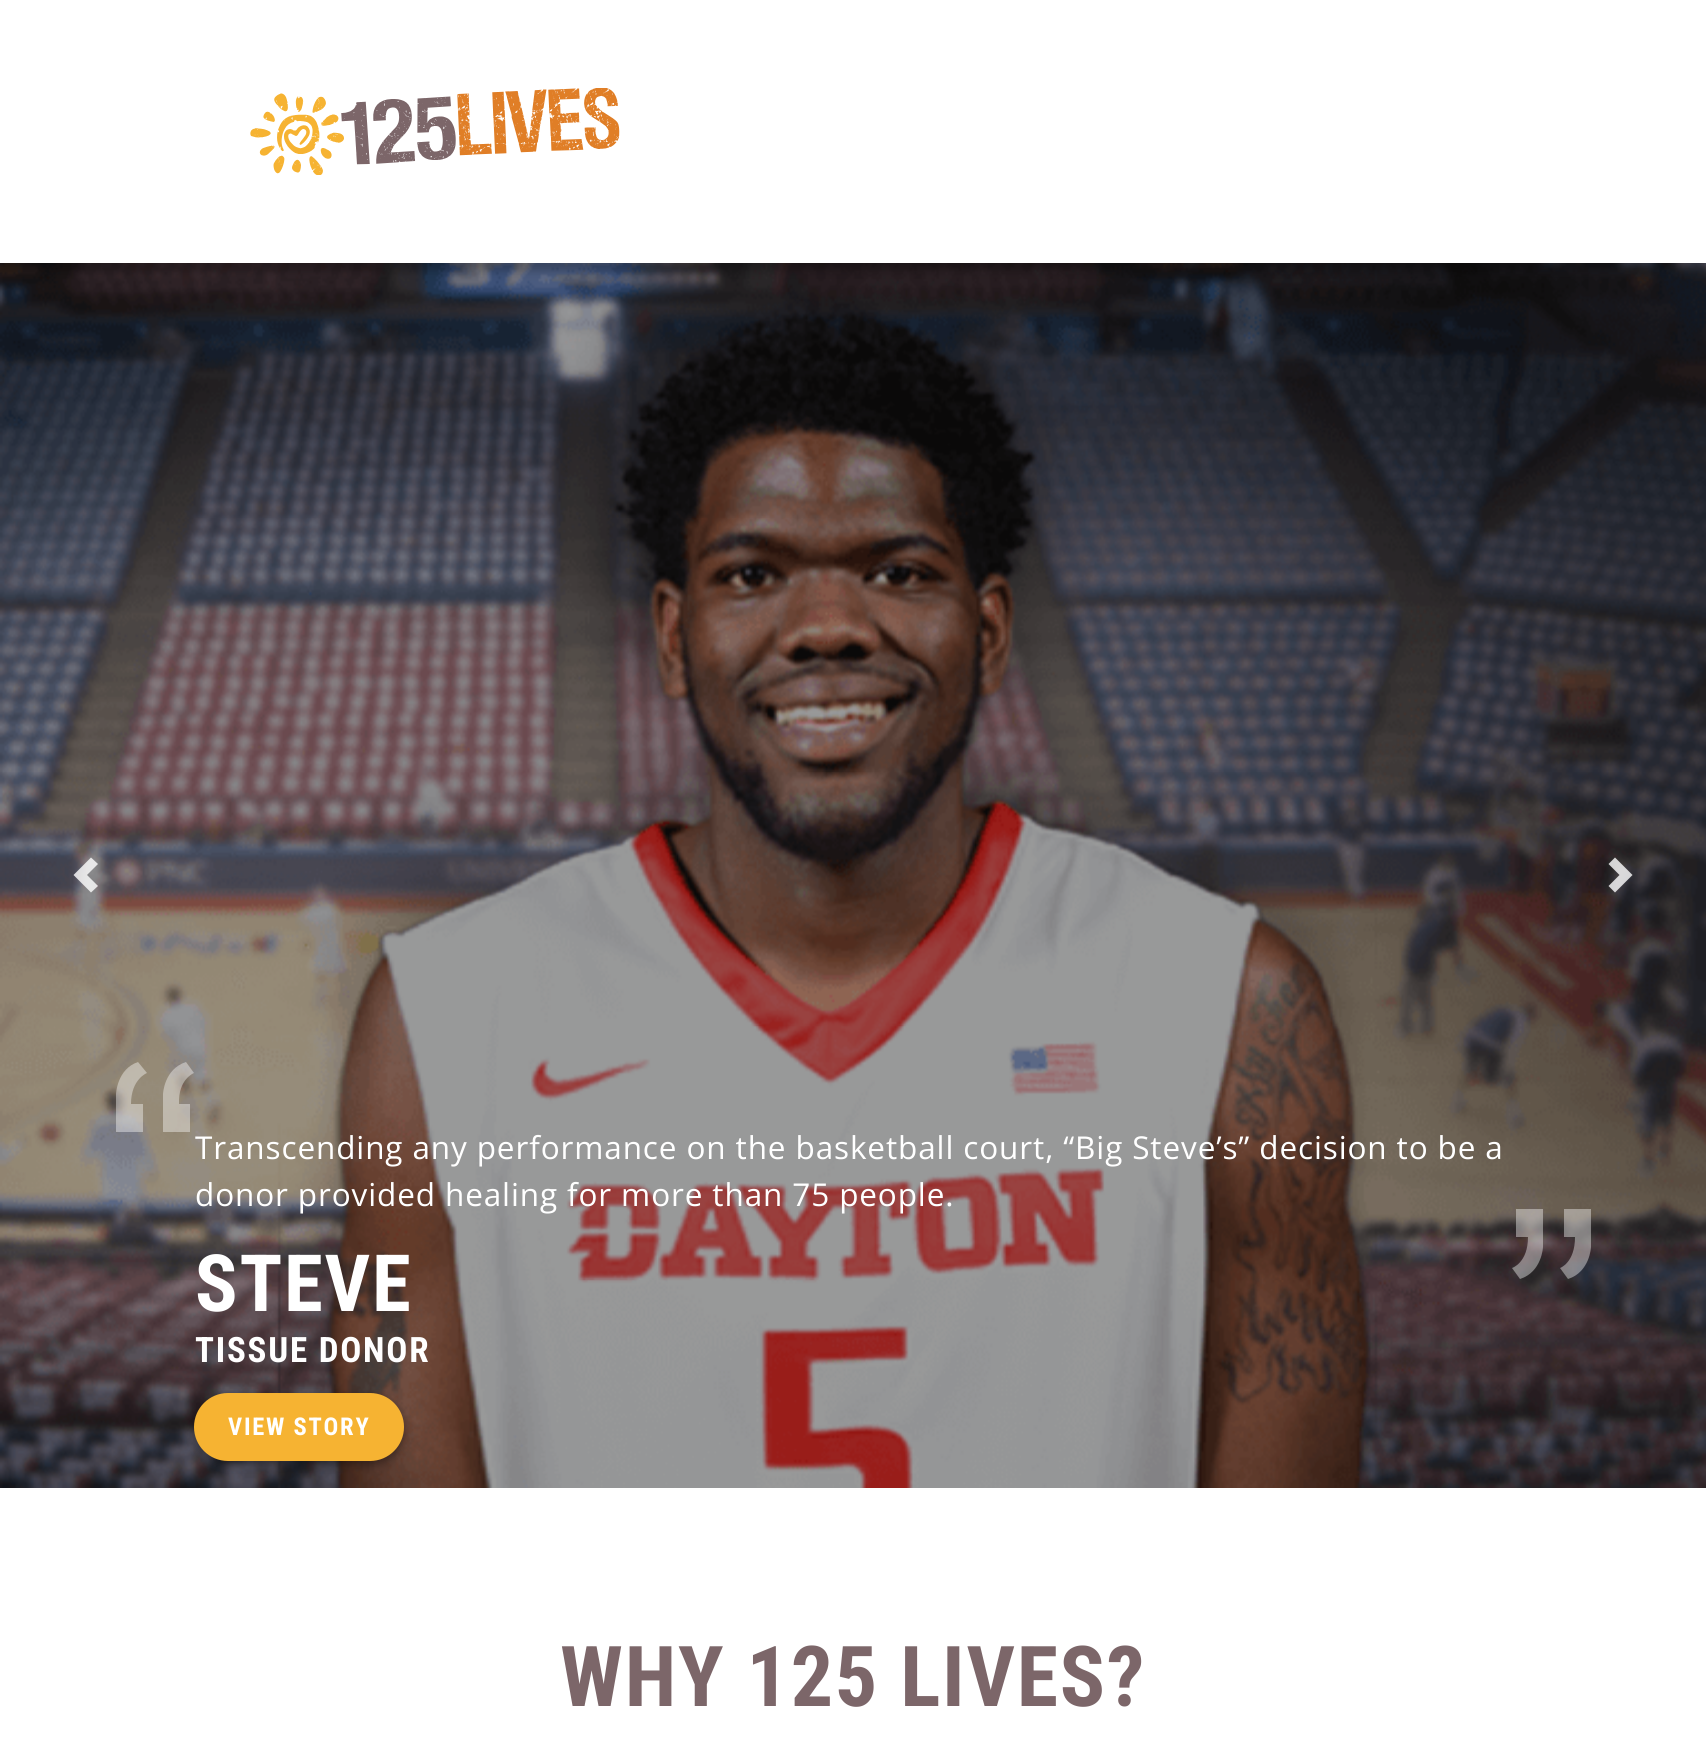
#include <cairo.h>
#include <math.h>
#include <stddef.h>


static void ink(cairo_t *ctx, unsigned color) {
    cairo_set_source_rgb(ctx, (color >> 16) / 255.0, (color >> 8 & 255) / 255.0, (color & 255) / 255.0);
}

static void write_spaced(cairo_t *ctx, double x, double y, const char *s, double letter, double word) {
    cairo_move_to(ctx, x, y);
    while (*s) {
        char ch[5] = {0};
        int n = 0;
        do ch[n++] = *s++; while ((*s & 0xC0) == 0x80);
        cairo_show_text(ctx, ch);
        cairo_rel_move_to(ctx, letter + word * (*ch == ' '), 0);
    }
}

static void round_path(cairo_t *ctx, double x, double y, double w, double h, double r) {
    cairo_new_sub_path(ctx);
    cairo_arc(ctx, x + w - r, y + h - r, r, 0, M_PI / 2);
    cairo_arc(ctx, x + r, y + h - r, r, M_PI / 2, M_PI);
    cairo_arc(ctx, x + r, y + r, r, M_PI, 1.5 * M_PI);
    cairo_arc(ctx, x + w - r, y + r, r, 1.5 * M_PI, 2 * M_PI);
    cairo_close_path(ctx);
}

static void blur_box(cairo_t *ctx, double x, double y, double w, double h, double r, double blur, double alpha) {
    cairo_push_group_with_content(ctx, CAIRO_CONTENT_ALPHA);
    cairo_set_operator(ctx, CAIRO_OPERATOR_SOURCE);
    for (int i = 15; i >= -15 && fmin(w, h) + blur * i / 3 > 0; i -= 2) {
        double e = blur * i / 6;
        cairo_set_source_rgba(ctx, 0, 0, 0, alpha * erfc((i - 1) / 8.5) / 2);
        round_path(ctx, x - e, y - e, w + 2 * e, h + 2 * e, fmax(0, fmin(r + e + blur * .6, fmin(w, h) / 2 + e)));
        cairo_fill(ctx);
    }
    cairo_pattern_t *soft = cairo_pop_group(ctx);
    cairo_mask(ctx, soft);
    cairo_pattern_destroy(soft);
}

static void paste(cairo_t *ctx, const char *path, double x, double y, double w, double h) {
    cairo_surface_t *image = cairo_image_surface_create_from_png(path);
    cairo_save(ctx);
    cairo_set_source_surface(ctx, image, x, y);
    cairo_rectangle(ctx, x, y, w, h);
    cairo_fill(ctx);
    cairo_restore(ctx);
    cairo_surface_destroy(image);
}

int main(void) {
    cairo_surface_t *surface = cairo_image_surface_create(CAIRO_FORMAT_RGB24, 1706, 1763);
    cairo_t *ctx = cairo_create(surface);
    cairo_font_options_t *options = cairo_font_options_create();
    cairo_font_options_set_hint_metrics(options, CAIRO_HINT_METRICS_OFF);
    cairo_font_options_set_hint_style(options, CAIRO_HINT_STYLE_NONE);
    cairo_set_font_options(ctx, options);
    cairo_set_miter_limit(ctx, 4);
    ink(ctx, 0xFFFFFF);
    cairo_paint(ctx);
    paste(ctx, "media/2.png", 0, 263, 1706, 1225);
    cairo_save(ctx);
    cairo_set_fill_rule(ctx, CAIRO_FILL_RULE_EVEN_ODD);
    cairo_new_path(ctx);
    cairo_move_to(ctx, 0, 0);
    cairo_line_to(ctx, 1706, 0);
    cairo_line_to(ctx, 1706, 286);
    cairo_line_to(ctx, 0, 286);
    cairo_close_path(ctx);
    cairo_move_to(ctx, 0, 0);
    cairo_line_to(ctx, 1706, 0);
    cairo_line_to(ctx, 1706, 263);
    cairo_line_to(ctx, 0, 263);
    cairo_close_path(ctx);
    cairo_clip(ctx);
    ink(ctx, 0x000000);
    blur_box(ctx, 0, 9, 1706, 262, 0, 4.5, 0.25);
    cairo_restore(ctx);
    paste(ctx, "media/1.png", 250, 88, 370, 87);
    cairo_set_source_rgba(ctx, 0, 0, 0, 0.4);
    cairo_rectangle(ctx, 0, 263, 1706, 1225);
    cairo_fill(ctx);
    cairo_set_source_rgba(ctx, 1, 1, 1, 0.8);
    cairo_new_path(ctx);
    cairo_move_to(ctx, 91, 857.5);
    cairo_line_to(ctx, 73.5, 875);
    cairo_line_to(ctx, 91, 892.5);
    cairo_line_to(ctx, 98, 886);
    cairo_line_to(ctx, 87, 875);
    cairo_line_to(ctx, 98, 864);
    cairo_close_path(ctx);
    cairo_fill(ctx);
    cairo_new_path(ctx);
    cairo_move_to(ctx, 1615, 857.5);
    cairo_line_to(ctx, 1608.5, 864);
    cairo_line_to(ctx, 1619.5, 875);
    cairo_line_to(ctx, 1608.5, 886);
    cairo_line_to(ctx, 1615, 892.5);
    cairo_line_to(ctx, 1632.5, 875);
    cairo_close_path(ctx);
    cairo_fill(ctx);
    cairo_set_source_rgba(ctx, 1, 1, 1, 0.4);
    cairo_new_path(ctx);
    cairo_move_to(ctx, 143, 1132);
    cairo_line_to(ctx, 116, 1132);
    cairo_line_to(ctx, 116, 1094);
    cairo_curve_to(ctx, 116, 1094, 117, 1069, 138, 1062);
    cairo_line_to(ctx, 147, 1073);
    cairo_curve_to(ctx, 147, 1073, 131, 1079, 131, 1104);
    cairo_line_to(ctx, 143, 1104);
    cairo_close_path(ctx);
    cairo_move_to(ctx, 190, 1132);
    cairo_line_to(ctx, 163, 1132);
    cairo_line_to(ctx, 163, 1094);
    cairo_curve_to(ctx, 163, 1094, 164, 1069, 186, 1062);
    cairo_line_to(ctx, 194, 1073);
    cairo_curve_to(ctx, 194, 1073, 178, 1079, 179, 1104);
    cairo_line_to(ctx, 190, 1104);
    cairo_close_path(ctx);
    cairo_fill(ctx);
    cairo_select_font_face(ctx, "Open Sans", CAIRO_FONT_SLANT_NORMAL, CAIRO_FONT_WEIGHT_NORMAL);
    cairo_set_font_size(ctx, 31.5);
    ink(ctx, 0xFFFFFF);
    write_spaced(ctx, 195, 1159, "Transcending any performance on the basketball court, “Big Steve’s” decision to be a", 0.88, 0);
    write_spaced(ctx, 195, 1206, "donor provided healing for more than 75 people.", 0.88, 0);
    cairo_set_source_rgba(ctx, 1, 1, 1, 0.4);
    cairo_new_path(ctx);
    cairo_move_to(ctx, 1564, 1209);
    cairo_line_to(ctx, 1591, 1209);
    cairo_line_to(ctx, 1591, 1247);
    cairo_curve_to(ctx, 1591, 1247, 1590, 1272, 1568, 1279);
    cairo_line_to(ctx, 1560, 1268);
    cairo_curve_to(ctx, 1560, 1268, 1575, 1263, 1575, 1237);
    cairo_line_to(ctx, 1564, 1237);
    cairo_close_path(ctx);
    cairo_move_to(ctx, 1516, 1209);
    cairo_line_to(ctx, 1543, 1209);
    cairo_line_to(ctx, 1543, 1247);
    cairo_curve_to(ctx, 1543, 1247, 1542, 1272, 1520, 1279);
    cairo_line_to(ctx, 1512, 1268);
    cairo_curve_to(ctx, 1512, 1268, 1528, 1263, 1528, 1237);
    cairo_line_to(ctx, 1516, 1237);
    cairo_close_path(ctx);
    cairo_fill(ctx);
    cairo_select_font_face(ctx, "Roboto Condensed", CAIRO_FONT_SLANT_NORMAL, CAIRO_FONT_WEIGHT_BOLD);
    cairo_set_font_size(ctx, 79);
    ink(ctx, 0xFFFFFF);
    write_spaced(ctx, 195, 1311, "STEVE", 1.75, 0);
    cairo_set_font_size(ctx, 35);
    write_spaced(ctx, 195, 1362, "TISSUE DONOR", 1.75, 0);
    ink(ctx, 0x000000);
    blur_box(ctx, 194, 1397, 210, 68, 34, 4.5, 0.35);
    ink(ctx, 0xF6B332);
    round_path(ctx, 195, 1394, 208, 66, 33);
    cairo_fill_preserve(ctx);
    cairo_stroke(ctx);
    cairo_set_font_size(ctx, 24.5);
    ink(ctx, 0xFFFFFF);
    write_spaced(ctx, 228, 1435, "VIEW STORY", 1.75, 0);
    cairo_set_font_size(ctx, 84);
    ink(ctx, 0x7C6669);
    write_spaced(ctx, 560, 1706, "WHY 125 LIVES?", 1.75, 0);
    cairo_surface_write_to_png(surface, "image.png");
    cairo_font_options_destroy(options);
    cairo_destroy(ctx);
    cairo_surface_destroy(surface);
    return 0;
}
